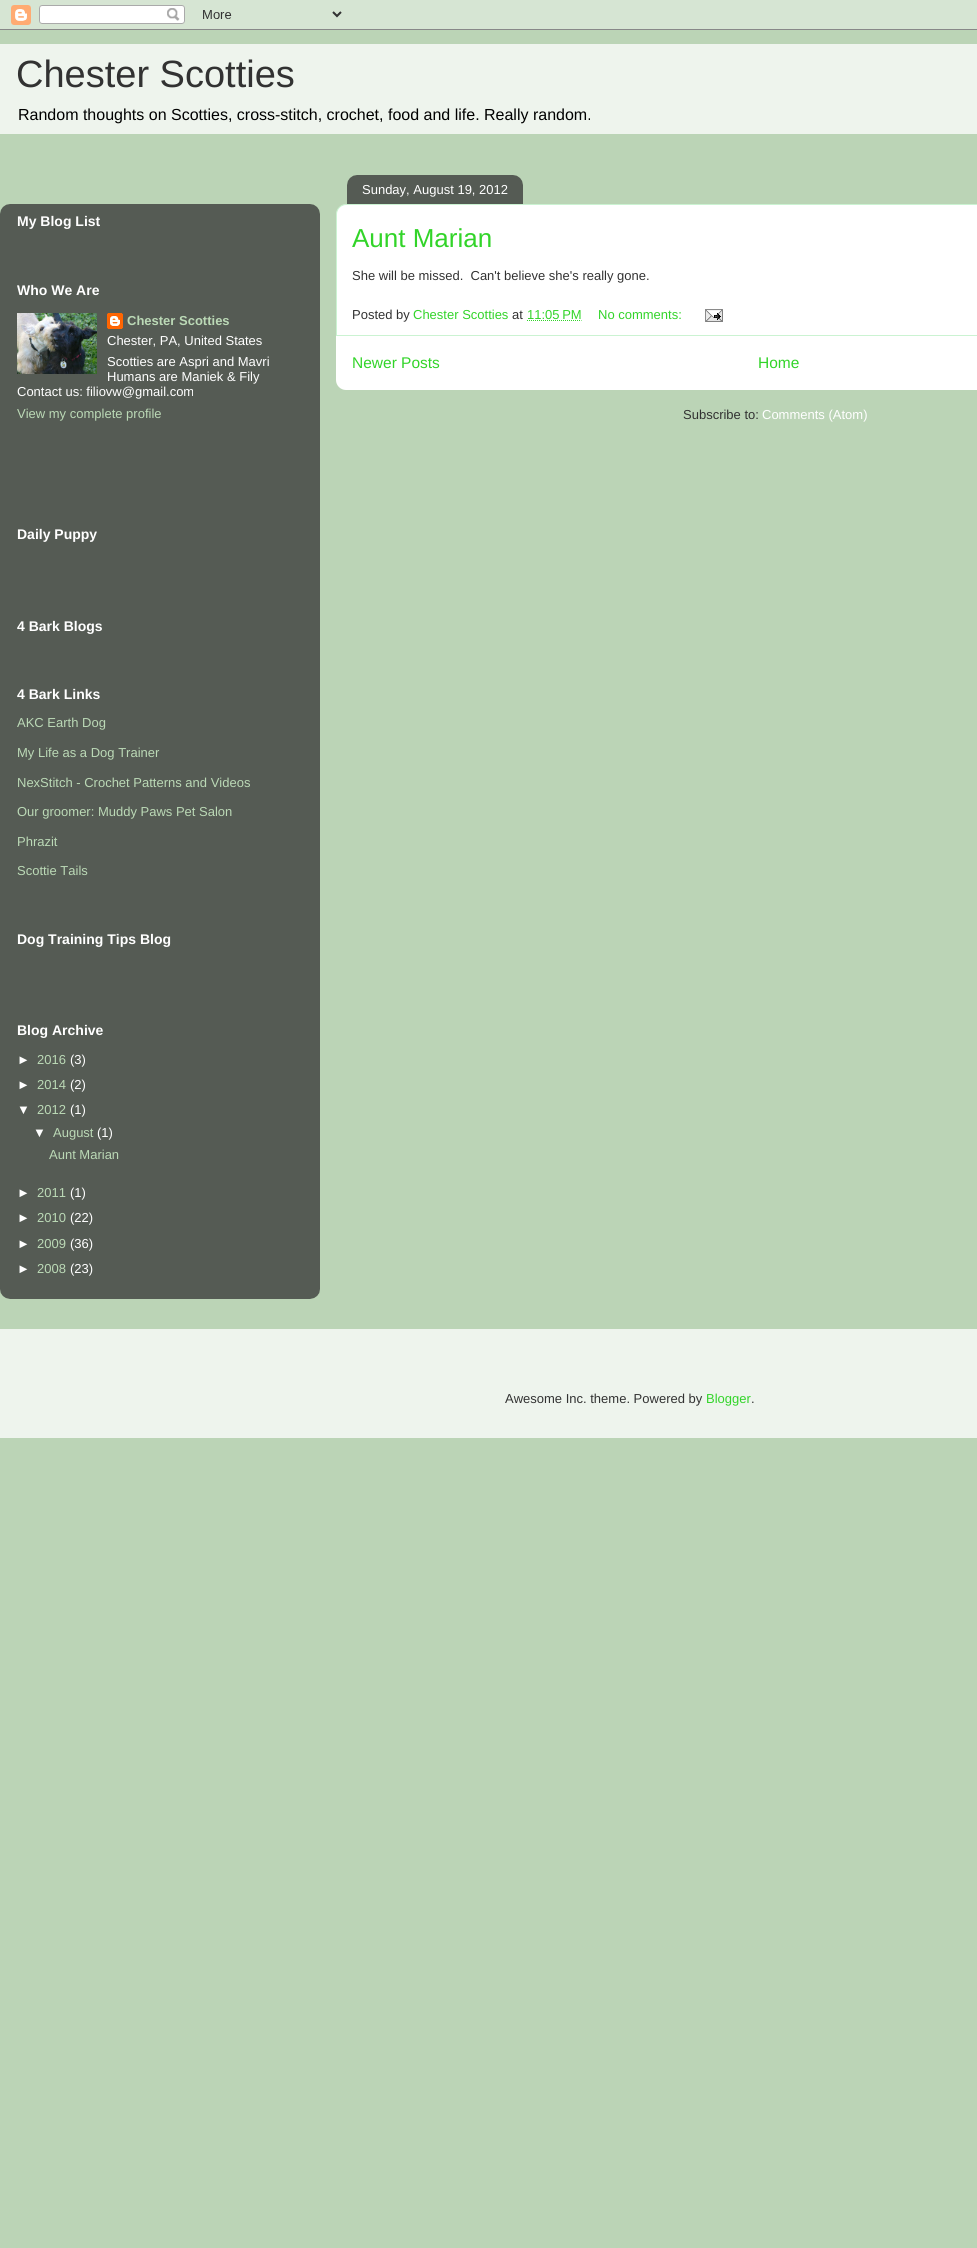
#include <cairo.h>
#include <math.h>
#include <stddef.h>

typedef struct { double x, y; const char *s; } line_t;

static void ink(cairo_t *ctx, unsigned color) {
    cairo_set_source_rgb(ctx, (color >> 16) / 255.0, (color >> 8 & 255) / 255.0, (color & 255) / 255.0);
}

static void paste(cairo_t *ctx, const char *path, double x, double y, double w, double h) {
    cairo_surface_t *image = cairo_image_surface_create_from_png(path);
    cairo_save(ctx);
    cairo_set_source_surface(ctx, image, x, y);
    cairo_rectangle(ctx, x, y, w, h);
    cairo_fill(ctx);
    cairo_restore(ctx);
    cairo_surface_destroy(image);
}

int main(void) {
    cairo_surface_t *surface = cairo_image_surface_create(CAIRO_FORMAT_RGB24, 977, 2248);
    cairo_t *ctx = cairo_create(surface);
    cairo_font_options_t *options = cairo_font_options_create();
    cairo_font_options_set_hint_metrics(options, CAIRO_HINT_METRICS_OFF);
    cairo_font_options_set_hint_style(options, CAIRO_HINT_STYLE_NONE);
    cairo_set_font_options(ctx, options);
    cairo_set_miter_limit(ctx, 4);
    ink(ctx, 0xBBD4B6);
    cairo_paint(ctx);
    paste(ctx, "media/1.png", 0, 0, 977, 30);
    ink(ctx, 0xEEF4ED);
    cairo_rectangle(ctx, 0, 44, 977, 90);
    cairo_fill(ctx);
    cairo_select_font_face(ctx, "Liberation Sans", CAIRO_FONT_SLANT_NORMAL, CAIRO_FONT_WEIGHT_NORMAL);
    cairo_set_font_size(ctx, 38);
    ink(ctx, 0x323232);
    cairo_move_to(ctx, 16, 87);
    cairo_show_text(ctx, "Chester Scotties");
    cairo_set_font_size(ctx, 16);
    ink(ctx, 0x000000);
    cairo_move_to(ctx, 18, 120);
    cairo_show_text(ctx, "Random thoughts on Scotties, cross-stitch, crochet, food and life. Really random.");
    paste(ctx, "media/2.png", 0, 204, 320, 1095);
    cairo_select_font_face(ctx, "Liberation Sans", CAIRO_FONT_SLANT_NORMAL, CAIRO_FONT_WEIGHT_BOLD);
    cairo_set_font_size(ctx, 14);
    ink(ctx, 0xFFFFFF);
    cairo_move_to(ctx, 17, 226);
    cairo_show_text(ctx, "My Blog List");
    cairo_move_to(ctx, 17, 295);
    cairo_show_text(ctx, "Who We Are");
    paste(ctx, "media/3.png", 17, 313, 80, 61);
    paste(ctx, "media/4.png", 107, 313, 16, 16);
    cairo_set_font_size(ctx, 13);
    ink(ctx, 0xBBD9B6);
    cairo_move_to(ctx, 127, 325);
    cairo_show_text(ctx, "Chester Scotties");
    cairo_select_font_face(ctx, "Liberation Sans", CAIRO_FONT_SLANT_NORMAL, CAIRO_FONT_WEIGHT_NORMAL);
    ink(ctx, 0xFFFFFF);
    {
        static const line_t items[] = {
            {107, 345, "Chester, PA, United States"},
            {107, 366, "Scotties are Aspri and Mavri"},
            {107, 381, "Humans are Maniek & Fily"},
            {17, 396, "Contact us: filiovw@gmail.com"},
        };
        for (size_t i = 0; i < sizeof items / sizeof *items; i++) {
            cairo_move_to(ctx, items[i].x, items[i].y);
            cairo_show_text(ctx, items[i].s);
        }
    }
    ink(ctx, 0xBBD9B6);
    cairo_move_to(ctx, 17, 418);
    cairo_show_text(ctx, "View my complete profile");
    cairo_select_font_face(ctx, "Liberation Sans", CAIRO_FONT_SLANT_NORMAL, CAIRO_FONT_WEIGHT_BOLD);
    cairo_set_font_size(ctx, 14);
    ink(ctx, 0xFFFFFF);
    {
        static const line_t items[] = {
            {17, 539, "Daily Puppy"},
            {17, 631, "4 Bark Blogs"},
            {17, 699, "4 Bark Links"},
        };
        for (size_t i = 0; i < sizeof items / sizeof *items; i++) {
            cairo_move_to(ctx, items[i].x, items[i].y);
            cairo_show_text(ctx, items[i].s);
        }
    }
    cairo_select_font_face(ctx, "Liberation Sans", CAIRO_FONT_SLANT_NORMAL, CAIRO_FONT_WEIGHT_NORMAL);
    cairo_set_font_size(ctx, 13);
    ink(ctx, 0xBBD9B6);
    {
        static const line_t items[] = {
            {17, 727, "AKC Earth Dog"},
            {17, 757, "My Life as a Dog Trainer"},
            {17, 787, "NexStitch - Crochet Patterns and Videos"},
            {17, 816, "Our groomer: Muddy Paws Pet Salon"},
            {17, 846, "Phrazit"},
            {17, 875, "Scottie Tails"},
        };
        for (size_t i = 0; i < sizeof items / sizeof *items; i++) {
            cairo_move_to(ctx, items[i].x, items[i].y);
            cairo_show_text(ctx, items[i].s);
        }
    }
    cairo_select_font_face(ctx, "Liberation Sans", CAIRO_FONT_SLANT_NORMAL, CAIRO_FONT_WEIGHT_BOLD);
    cairo_set_font_size(ctx, 14);
    ink(ctx, 0xFFFFFF);
    cairo_move_to(ctx, 17, 944);
    cairo_show_text(ctx, "Dog Training Tips Blog");
    cairo_move_to(ctx, 17, 1035);
    cairo_show_text(ctx, "Blog Archive");
    cairo_select_font_face(ctx, "Liberation Sans", CAIRO_FONT_SLANT_NORMAL, CAIRO_FONT_WEIGHT_NORMAL);
    cairo_set_font_size(ctx, 13);
    cairo_move_to(ctx, 17, 1064);
    cairo_show_text(ctx, "►");
    ink(ctx, 0xBBD9B6);
    cairo_move_to(ctx, 37, 1064);
    cairo_show_text(ctx, "2016");
    ink(ctx, 0xFFFFFF);
    cairo_move_to(ctx, 70, 1064);
    cairo_show_text(ctx, "(3)");
    cairo_move_to(ctx, 17, 1089);
    cairo_show_text(ctx, "►");
    ink(ctx, 0xBBD9B6);
    cairo_move_to(ctx, 37, 1089);
    cairo_show_text(ctx, "2014");
    ink(ctx, 0xFFFFFF);
    cairo_move_to(ctx, 70, 1089);
    cairo_show_text(ctx, "(2)");
    cairo_move_to(ctx, 17, 1114);
    cairo_show_text(ctx, "▼");
    ink(ctx, 0xBBD9B6);
    cairo_move_to(ctx, 37, 1114);
    cairo_show_text(ctx, "2012");
    ink(ctx, 0xFFFFFF);
    cairo_move_to(ctx, 70, 1114);
    cairo_show_text(ctx, "(1)");
    cairo_move_to(ctx, 33, 1137);
    cairo_show_text(ctx, "▼");
    ink(ctx, 0xBBD9B6);
    cairo_move_to(ctx, 53, 1137);
    cairo_show_text(ctx, "August");
    ink(ctx, 0xFFFFFF);
    cairo_move_to(ctx, 97, 1137);
    cairo_show_text(ctx, "(1)");
    ink(ctx, 0xBBD9B6);
    cairo_move_to(ctx, 49, 1159);
    cairo_show_text(ctx, "Aunt Marian");
    ink(ctx, 0xFFFFFF);
    cairo_move_to(ctx, 17, 1197);
    cairo_show_text(ctx, "►");
    ink(ctx, 0xBBD9B6);
    cairo_move_to(ctx, 37, 1197);
    cairo_show_text(ctx, "2011");
    ink(ctx, 0xFFFFFF);
    cairo_move_to(ctx, 70, 1197);
    cairo_show_text(ctx, "(1)");
    cairo_move_to(ctx, 17, 1222);
    cairo_show_text(ctx, "►");
    ink(ctx, 0xBBD9B6);
    cairo_move_to(ctx, 37, 1222);
    cairo_show_text(ctx, "2010");
    ink(ctx, 0xFFFFFF);
    cairo_move_to(ctx, 70, 1222);
    cairo_show_text(ctx, "(22)");
    cairo_move_to(ctx, 17, 1248);
    cairo_show_text(ctx, "►");
    ink(ctx, 0xBBD9B6);
    cairo_move_to(ctx, 37, 1248);
    cairo_show_text(ctx, "2009");
    ink(ctx, 0xFFFFFF);
    cairo_move_to(ctx, 70, 1248);
    cairo_show_text(ctx, "(36)");
    cairo_move_to(ctx, 17, 1273);
    cairo_show_text(ctx, "►");
    ink(ctx, 0xBBD9B6);
    cairo_move_to(ctx, 37, 1273);
    cairo_show_text(ctx, "2008");
    ink(ctx, 0xFFFFFF);
    cairo_move_to(ctx, 70, 1273);
    cairo_show_text(ctx, "(23)");
    cairo_new_path(ctx);
    cairo_move_to(ctx, 346, 204.5);
    cairo_line_to(ctx, 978, 204.5);
    cairo_curve_to(ctx, 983, 204.5, 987.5, 209, 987.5, 214);
    cairo_line_to(ctx, 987.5, 335.5);
    cairo_line_to(ctx, 336.5, 335.5);
    cairo_line_to(ctx, 336.5, 214);
    cairo_curve_to(ctx, 336.5, 209, 341, 204.5, 346, 204.5);
    cairo_close_path(ctx);
    cairo_fill_preserve(ctx);
    ink(ctx, 0xCBF3D2);
    cairo_set_line_width(ctx, 1);
    cairo_stroke(ctx);
    paste(ctx, "media/5.png", 347, 175, 176, 29);
    ink(ctx, 0xFFFFFF);
    cairo_move_to(ctx, 362, 194);
    cairo_show_text(ctx, "Sunday, August 19, 2012");
    cairo_set_font_size(ctx, 26);
    ink(ctx, 0x32D429);
    cairo_move_to(ctx, 352, 247);
    cairo_show_text(ctx, "Aunt Marian");
    cairo_set_font_size(ctx, 13);
    ink(ctx, 0x323232);
    cairo_move_to(ctx, 352, 280);
    cairo_show_text(ctx, "She will be missed.  Can't believe she's really gone.");
    cairo_move_to(ctx, 352, 319);
    cairo_show_text(ctx, "Posted by");
    ink(ctx, 0x32D429);
    cairo_move_to(ctx, 413, 319);
    cairo_show_text(ctx, "Chester Scotties");
    ink(ctx, 0x323232);
    cairo_move_to(ctx, 512, 319);
    cairo_show_text(ctx, "at");
    ink(ctx, 0x32D429);
    cairo_move_to(ctx, 527, 319);
    cairo_show_text(ctx, "11:05 PM");
    cairo_new_path(ctx);
    cairo_move_to(ctx, 527, 320.5);
    cairo_line_to(ctx, 581.5, 320.5);
    cairo_set_dash(ctx, (double[]){1, 1}, 2, 0);
    cairo_stroke(ctx);
    cairo_move_to(ctx, 598, 319);
    cairo_show_text(ctx, "No comments:");
    paste(ctx, "media/6.png", 705, 309, 18, 13);
    ink(ctx, 0xFFFFFF);
    cairo_new_path(ctx);
    cairo_move_to(ctx, 336, 336);
    cairo_line_to(ctx, 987, 336);
    cairo_line_to(ctx, 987, 380);
    cairo_curve_to(ctx, 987, 385.5, 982.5, 390, 977, 390);
    cairo_line_to(ctx, 346, 390);
    cairo_curve_to(ctx, 340.5, 390, 336, 385.5, 336, 380);
    cairo_close_path(ctx);
    cairo_fill(ctx);
    cairo_set_font_size(ctx, 15.5);
    ink(ctx, 0x32D429);
    cairo_move_to(ctx, 352, 368);
    cairo_show_text(ctx, "Newer Posts");
    cairo_move_to(ctx, 758, 368);
    cairo_show_text(ctx, "Home");
    cairo_set_font_size(ctx, 13);
    ink(ctx, 0x323232);
    cairo_move_to(ctx, 683, 419);
    cairo_show_text(ctx, "Subscribe to:");
    ink(ctx, 0xFFFFFF);
    cairo_move_to(ctx, 762, 419);
    cairo_show_text(ctx, "Comments (Atom)");
    ink(ctx, 0xEEF4ED);
    cairo_rectangle(ctx, 0, 1329, 977, 109);
    cairo_fill(ctx);
    ink(ctx, 0x323232);
    cairo_move_to(ctx, 505, 1403);
    cairo_show_text(ctx, "Awesome Inc. theme. Powered by");
    ink(ctx, 0x32D429);
    cairo_move_to(ctx, 706, 1403);
    cairo_show_text(ctx, "Blogger");
    ink(ctx, 0x323232);
    cairo_move_to(ctx, 751, 1403);
    cairo_show_text(ctx, ".");
    cairo_surface_write_to_png(surface, "image.png");
    cairo_font_options_destroy(options);
    cairo_destroy(ctx);
    cairo_surface_destroy(surface);
    return 0;
}
